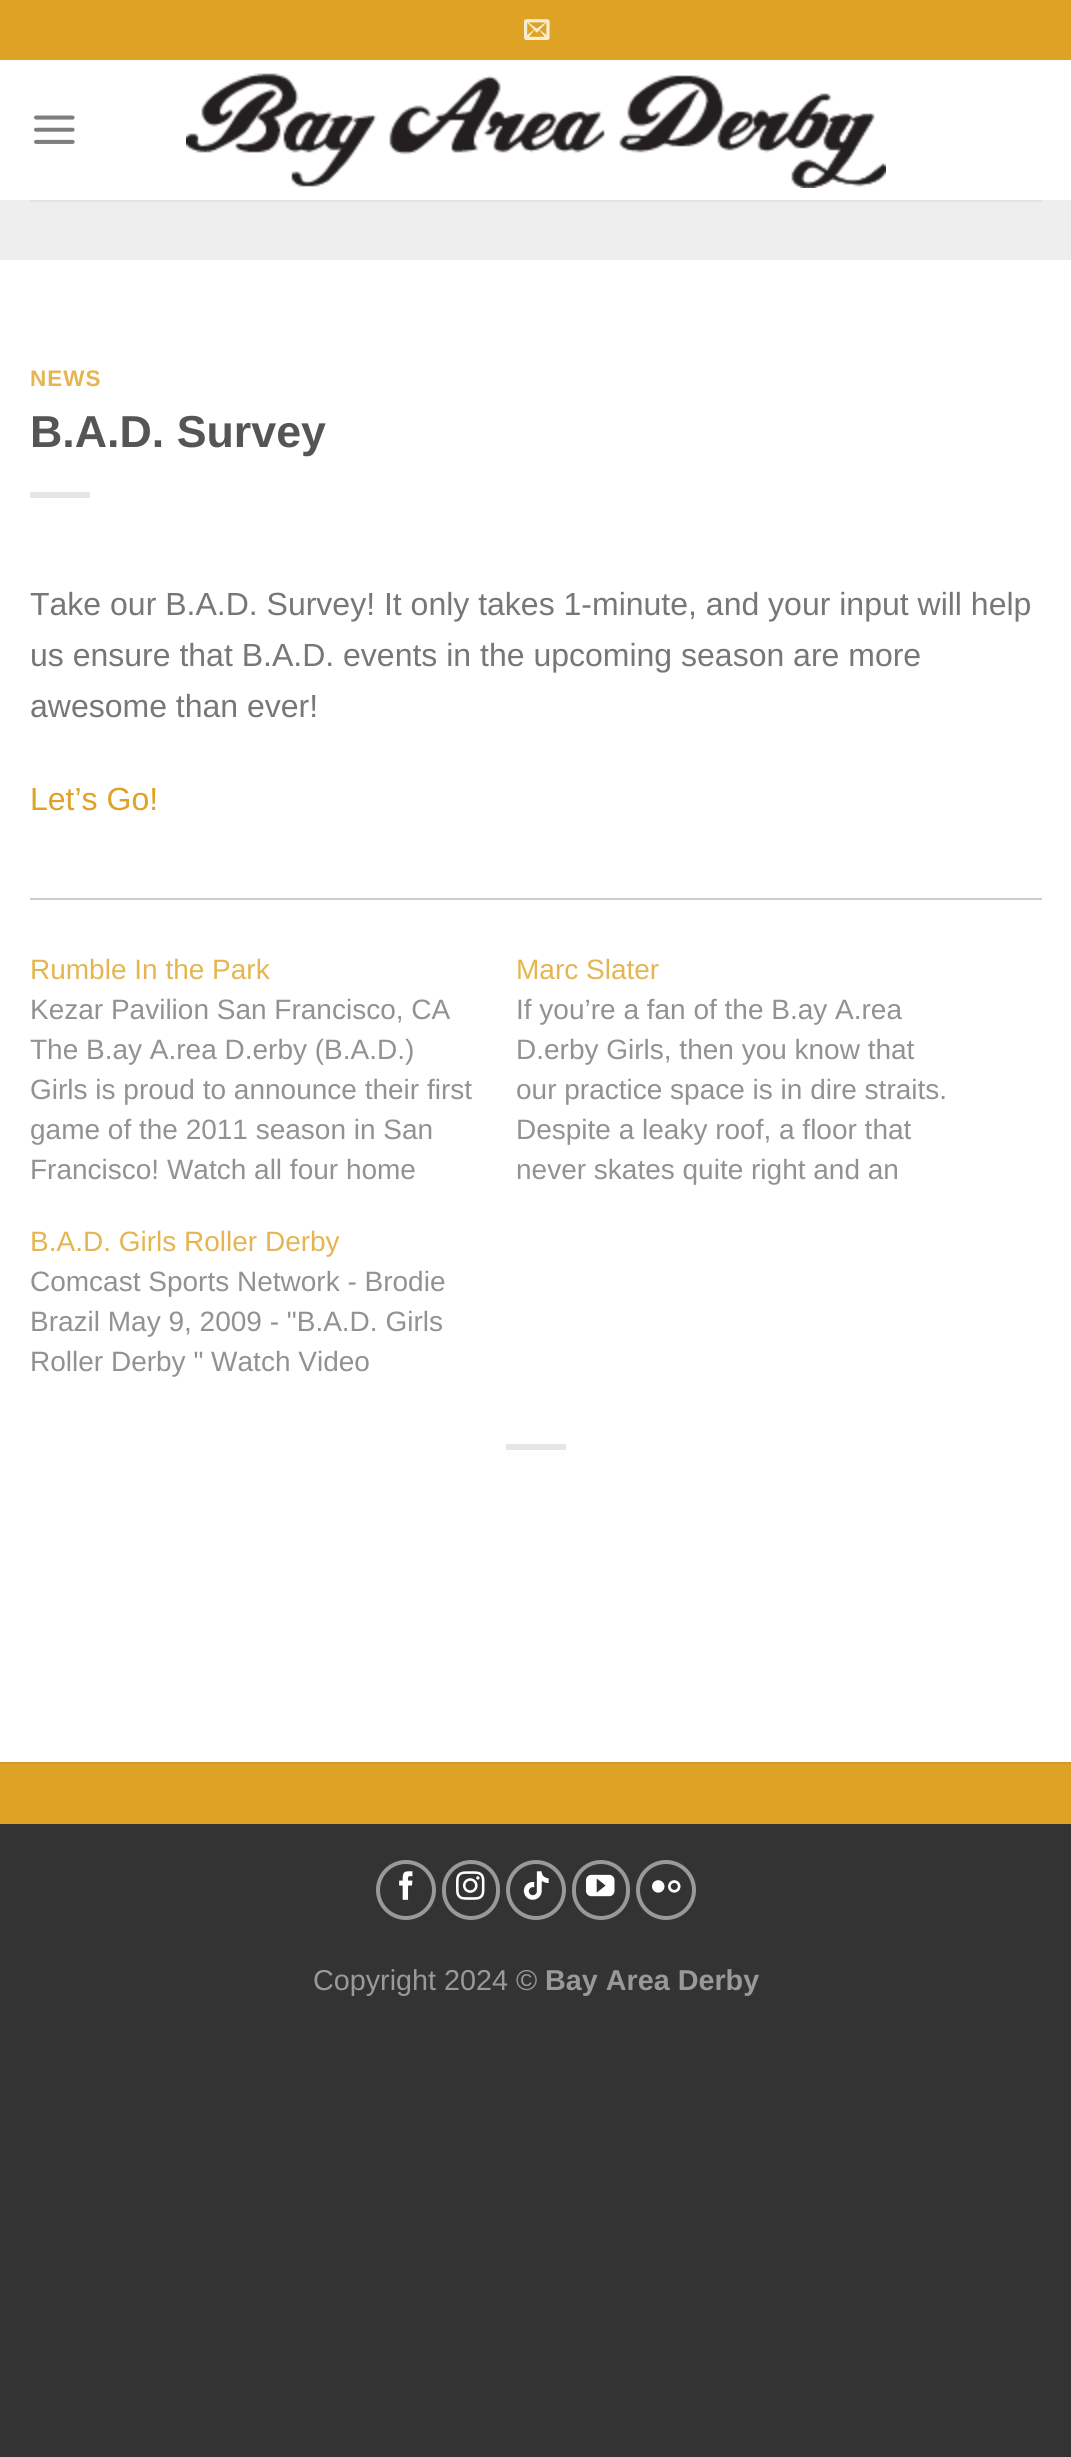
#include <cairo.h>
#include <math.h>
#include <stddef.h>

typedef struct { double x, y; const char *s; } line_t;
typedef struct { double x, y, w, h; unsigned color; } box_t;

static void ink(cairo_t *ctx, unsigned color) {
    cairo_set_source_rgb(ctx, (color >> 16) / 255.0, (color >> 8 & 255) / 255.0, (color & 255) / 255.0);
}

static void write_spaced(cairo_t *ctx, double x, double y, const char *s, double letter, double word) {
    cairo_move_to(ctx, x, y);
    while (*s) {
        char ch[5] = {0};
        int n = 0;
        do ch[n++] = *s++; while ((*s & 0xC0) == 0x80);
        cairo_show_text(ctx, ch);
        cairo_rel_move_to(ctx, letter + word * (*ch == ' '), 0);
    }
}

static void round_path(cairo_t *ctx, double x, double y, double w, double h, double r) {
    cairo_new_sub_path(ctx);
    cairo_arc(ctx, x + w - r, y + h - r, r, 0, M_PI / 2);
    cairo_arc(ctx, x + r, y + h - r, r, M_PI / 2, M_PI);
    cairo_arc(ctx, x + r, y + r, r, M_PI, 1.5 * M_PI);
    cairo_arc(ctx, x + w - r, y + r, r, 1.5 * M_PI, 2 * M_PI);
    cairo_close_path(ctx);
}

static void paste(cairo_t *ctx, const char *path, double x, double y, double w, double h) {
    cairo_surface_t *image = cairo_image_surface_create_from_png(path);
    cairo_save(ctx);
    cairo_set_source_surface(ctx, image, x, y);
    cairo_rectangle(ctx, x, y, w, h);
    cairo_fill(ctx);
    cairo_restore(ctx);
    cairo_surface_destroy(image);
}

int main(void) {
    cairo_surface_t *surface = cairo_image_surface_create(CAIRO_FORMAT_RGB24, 1071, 2457);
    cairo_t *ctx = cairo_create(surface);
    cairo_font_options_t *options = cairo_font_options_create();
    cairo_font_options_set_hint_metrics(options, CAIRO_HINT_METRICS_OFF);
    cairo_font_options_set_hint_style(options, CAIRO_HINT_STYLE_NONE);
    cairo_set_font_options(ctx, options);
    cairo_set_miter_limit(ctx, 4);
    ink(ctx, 0x333333);
    cairo_paint(ctx);
    ink(ctx, 0xFFFFFF);
    cairo_rectangle(ctx, 0, 60, 1071, 1702);
    cairo_fill(ctx);
    ink(ctx, 0xDEA225);
    cairo_rectangle(ctx, 0, 0, 1071, 60);
    cairo_fill(ctx);
    paste(ctx, "media/1.png", 524, 19, 26, 21);
    paste(ctx, "media/2.png", 34, 115, 41, 29);
    paste(ctx, "media/3.png", 186, 73, 700, 115);
    ink(ctx, 0xEEEEEE);
    cairo_rectangle(ctx, 0, 200, 1071, 60);
    cairo_fill(ctx);
    ink(ctx, 0xE2E2E2);
    cairo_rectangle(ctx, 30, 200, 1012, 2);
    cairo_fill(ctx);
    cairo_select_font_face(ctx, "Liberation Sans", CAIRO_FONT_SLANT_NORMAL, CAIRO_FONT_WEIGHT_BOLD);
    cairo_set_font_size(ctx, 22.5);
    ink(ctx, 0xE5B551);
    write_spaced(ctx, 30, 386, "NEWS", 1, 0);
    cairo_set_font_size(ctx, 44.75);
    ink(ctx, 0x555555);
    cairo_move_to(ctx, 30, 447);
    cairo_show_text(ctx, "B.A.D. Survey");
    ink(ctx, 0xE6E6E6);
    cairo_rectangle(ctx, 30, 492, 60, 6);
    cairo_fill(ctx);
    cairo_select_font_face(ctx, "Liberation Sans", CAIRO_FONT_SLANT_NORMAL, CAIRO_FONT_WEIGHT_NORMAL);
    cairo_set_font_size(ctx, 32);
    ink(ctx, 0x777777);
    {
        static const line_t items[] = {
            {30, 615, "Take our B.A.D. Survey! It only takes 1-minute, and your input will help"},
            {30, 666, "us ensure that B.A.D. events in the upcoming season are more"},
            {30, 717, "awesome than ever!"},
        };
        for (size_t i = 0; i < sizeof items / sizeof *items; i++) {
            cairo_move_to(ctx, items[i].x, items[i].y);
            cairo_show_text(ctx, items[i].s);
        }
    }
    ink(ctx, 0xDEA225);
    cairo_move_to(ctx, 30, 810);
    cairo_show_text(ctx, "Let’s Go!");
    ink(ctx, 0xCCCCCC);
    cairo_rectangle(ctx, 30, 898, 1012, 2);
    cairo_fill(ctx);
    cairo_set_font_size(ctx, 28);
    ink(ctx, 0xE5B551);
    cairo_move_to(ctx, 30, 979);
    cairo_show_text(ctx, "Rumble In the Park");
    ink(ctx, 0x929292);
    {
        static const line_t items[] = {
            {30, 1019, "Kezar Pavilion San Francisco, CA"},
            {30, 1059, "The B.ay A.rea D.erby (B.A.D.)"},
            {30, 1099, "Girls is proud to announce their first"},
            {30, 1139, "game of the 2011 season in San"},
            {30, 1179, "Francisco! Watch all four home"},
        };
        for (size_t i = 0; i < sizeof items / sizeof *items; i++) {
            cairo_move_to(ctx, items[i].x, items[i].y);
            cairo_show_text(ctx, items[i].s);
        }
    }
    ink(ctx, 0xE5B551);
    cairo_move_to(ctx, 516, 979);
    cairo_show_text(ctx, "Marc Slater");
    ink(ctx, 0x929292);
    {
        static const line_t items[] = {
            {516, 1019, "If you’re a fan of the B.ay A.rea"},
            {516, 1059, "D.erby Girls, then you know that"},
            {516, 1099, "our practice space is in dire straits."},
            {516, 1139, "Despite a leaky roof, a floor that"},
            {516, 1179, "never skates quite right and an"},
        };
        for (size_t i = 0; i < sizeof items / sizeof *items; i++) {
            cairo_move_to(ctx, items[i].x, items[i].y);
            cairo_show_text(ctx, items[i].s);
        }
    }
    ink(ctx, 0xE5B551);
    cairo_move_to(ctx, 30, 1251);
    cairo_show_text(ctx, "B.A.D. Girls Roller Derby");
    ink(ctx, 0x929292);
    {
        static const line_t items[] = {
            {30, 1291, "Comcast Sports Network - Brodie"},
            {30, 1331, "Brazil May 9, 2009 - \"B.A.D. Girls"},
            {30, 1371, "Roller Derby \" Watch Video"},
        };
        for (size_t i = 0; i < sizeof items / sizeof *items; i++) {
            cairo_move_to(ctx, items[i].x, items[i].y);
            cairo_show_text(ctx, items[i].s);
        }
    }
    {
        static const box_t items[] = {
            {506, 1444, 60, 6, 0xE6E6E6},
            {0, 1764, 1071, 60, 0xDEA225},
            {0, 1762, 1071, 2, 0xD39A23},
        };
        for (size_t i = 0; i < sizeof items / sizeof *items; i++) {
            ink(ctx, items[i].color);
            cairo_rectangle(ctx, items[i].x, items[i].y, items[i].w, items[i].h);
            cairo_fill(ctx);
        }
    }
    cairo_new_path(ctx);
    cairo_arc(ctx, 406, 1890, 28, 0, 2 * M_PI);
    ink(ctx, 0x999999);
    cairo_set_line_width(ctx, 4);
    cairo_stroke(ctx);
    paste(ctx, "media/4.png", 399, 1871, 14, 29);
    round_path(ctx, 444, 1862, 54, 56, 27);
    cairo_stroke(ctx);
    paste(ctx, "media/5.png", 456, 1871, 29, 29);
    cairo_arc(ctx, 536, 1890, 28, 0, 2 * M_PI);
    cairo_stroke(ctx);
    paste(ctx, "media/6.png", 523, 1871, 26, 29);
    round_path(ctx, 574, 1862, 54, 56, 27);
    cairo_stroke(ctx);
    paste(ctx, "media/7.png", 586, 1874, 29, 23);
    cairo_arc(ctx, 666, 1890, 28, 0, 2 * M_PI);
    cairo_stroke(ctx);
    paste(ctx, "media/8.png", 652, 1880, 29, 13);
    cairo_set_font_size(ctx, 28.75);
    cairo_move_to(ctx, 313, 1990);
    cairo_show_text(ctx, "Copyright 2024 ©");
    cairo_select_font_face(ctx, "Liberation Sans", CAIRO_FONT_SLANT_NORMAL, CAIRO_FONT_WEIGHT_BOLD);
    cairo_move_to(ctx, 545, 1990);
    cairo_show_text(ctx, "Bay Area Derby");
    cairo_surface_write_to_png(surface, "image.png");
    cairo_font_options_destroy(options);
    cairo_destroy(ctx);
    cairo_surface_destroy(surface);
    return 0;
}
